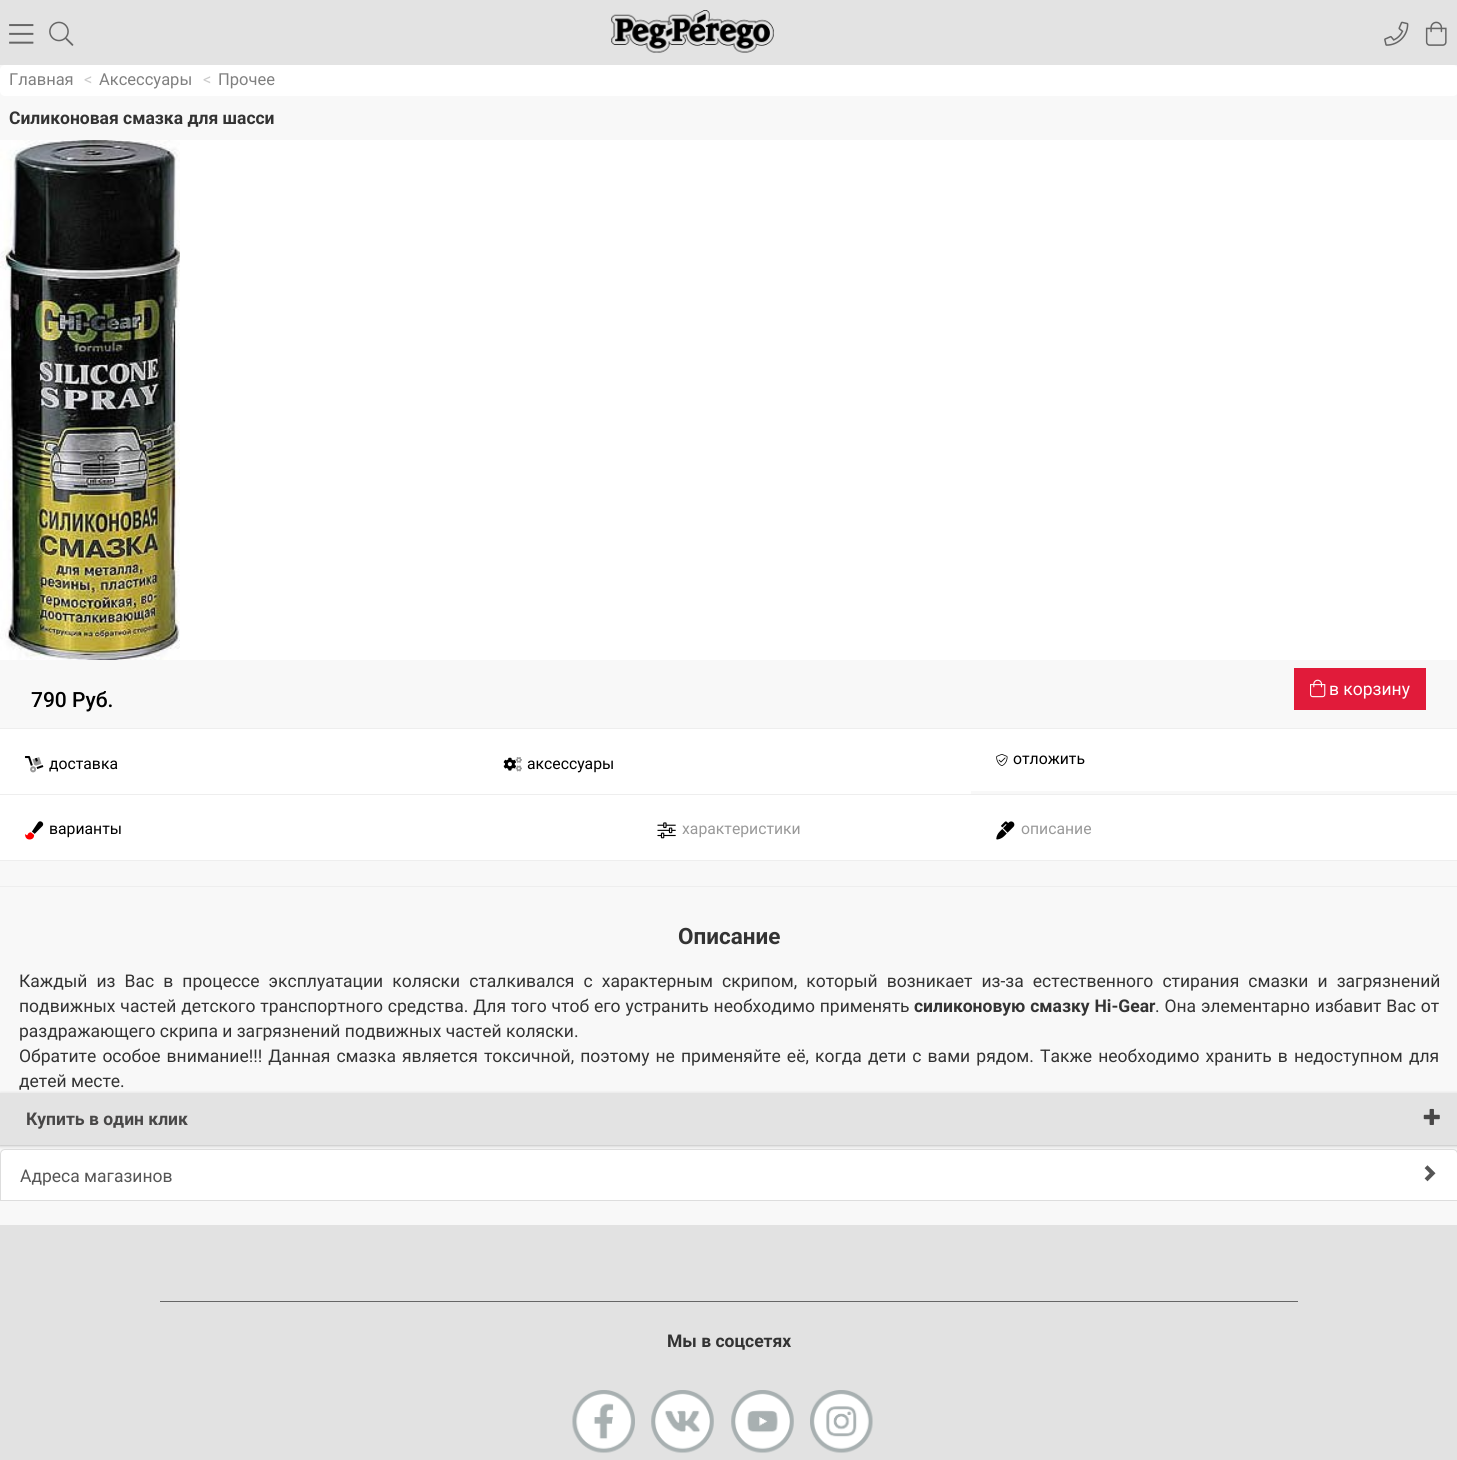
#include <cairo.h>
#include <math.h>
#include <stddef.h>

typedef struct { double x, y, w, h; unsigned color; } box_t;

static void ink(cairo_t *ctx, unsigned color) {
    cairo_set_source_rgb(ctx, (color >> 16) / 255.0, (color >> 8 & 255) / 255.0, (color & 255) / 255.0);
}

static void write_spaced(cairo_t *ctx, double x, double y, const char *s, double letter, double word) {
    cairo_move_to(ctx, x, y);
    while (*s) {
        char ch[5] = {0};
        int n = 0;
        do ch[n++] = *s++; while ((*s & 0xC0) == 0x80);
        cairo_show_text(ctx, ch);
        cairo_rel_move_to(ctx, letter + word * (*ch == ' '), 0);
    }
}

static void round_path(cairo_t *ctx, double x, double y, double w, double h, double r) {
    cairo_new_sub_path(ctx);
    cairo_arc(ctx, x + w - r, y + h - r, r, 0, M_PI / 2);
    cairo_arc(ctx, x + r, y + h - r, r, M_PI / 2, M_PI);
    cairo_arc(ctx, x + r, y + r, r, M_PI, 1.5 * M_PI);
    cairo_arc(ctx, x + w - r, y + r, r, 1.5 * M_PI, 2 * M_PI);
    cairo_close_path(ctx);
}

static void blur_box(cairo_t *ctx, double x, double y, double w, double h, double r, double blur, double alpha) {
    cairo_push_group_with_content(ctx, CAIRO_CONTENT_ALPHA);
    cairo_set_operator(ctx, CAIRO_OPERATOR_SOURCE);
    for (int i = 15; i >= -15 && fmin(w, h) + blur * i / 3 > 0; i -= 2) {
        double e = blur * i / 6;
        cairo_set_source_rgba(ctx, 0, 0, 0, alpha * erfc((i - 1) / 8.5) / 2);
        round_path(ctx, x - e, y - e, w + 2 * e, h + 2 * e, fmax(0, fmin(r + e + blur * .6, fmin(w, h) / 2 + e)));
        cairo_fill(ctx);
    }
    cairo_pattern_t *soft = cairo_pop_group(ctx);
    cairo_mask(ctx, soft);
    cairo_pattern_destroy(soft);
}

static void paste(cairo_t *ctx, const char *path, double x, double y, double w, double h) {
    cairo_surface_t *image = cairo_image_surface_create_from_png(path);
    cairo_save(ctx);
    cairo_set_source_surface(ctx, image, x, y);
    cairo_rectangle(ctx, x, y, w, h);
    cairo_fill(ctx);
    cairo_restore(ctx);
    cairo_surface_destroy(image);
}

int main(void) {
    cairo_surface_t *surface = cairo_image_surface_create(CAIRO_FORMAT_RGB24, 1457, 1460);
    cairo_t *ctx = cairo_create(surface);
    cairo_font_options_t *options = cairo_font_options_create();
    cairo_font_options_set_hint_metrics(options, CAIRO_HINT_METRICS_OFF);
    cairo_font_options_set_hint_style(options, CAIRO_HINT_STYLE_NONE);
    cairo_set_font_options(ctx, options);
    cairo_set_miter_limit(ctx, 4);
    ink(ctx, 0xF8F8F8);
    cairo_paint(ctx);
    ink(ctx, 0xE3E3E3);
    cairo_rectangle(ctx, 0, 0, 1457, 65);
    cairo_fill(ctx);
    paste(ctx, "media/1.png", 9, 24, 25, 20);
    paste(ctx, "media/2.png", 49, 21, 25, 25);
    paste(ctx, "media/3.png", 611, 10, 163, 43);
    paste(ctx, "media/4.png", 1384, 21, 25, 25);
    paste(ctx, "media/5.png", 1425, 21, 22, 25);
    ink(ctx, 0xFFFFFF);
    round_path(ctx, 0, 65, 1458, 31, 5);
    cairo_fill(ctx);
    cairo_select_font_face(ctx, "Roboto", CAIRO_FONT_SLANT_NORMAL, CAIRO_FONT_WEIGHT_NORMAL);
    cairo_set_font_size(ctx, 16.5);
    ink(ctx, 0x808080);
    cairo_move_to(ctx, 9, 85);
    cairo_show_text(ctx, "Главная");
    ink(ctx, 0xCCCCCC);
    cairo_move_to(ctx, 84, 85);
    cairo_show_text(ctx, "<");
    ink(ctx, 0x808080);
    cairo_move_to(ctx, 99, 85);
    cairo_show_text(ctx, "Аксессуары");
    ink(ctx, 0xCCCCCC);
    cairo_move_to(ctx, 203, 85);
    cairo_show_text(ctx, "<");
    ink(ctx, 0x808080);
    cairo_move_to(ctx, 218, 85);
    cairo_show_text(ctx, "Прочее");
    cairo_select_font_face(ctx, "Roboto", CAIRO_FONT_SLANT_NORMAL, CAIRO_FONT_WEIGHT_BOLD);
    cairo_set_font_size(ctx, 17.5);
    ink(ctx, 0x333333);
    cairo_move_to(ctx, 9, 124);
    cairo_show_text(ctx, "Силиконовая смазка для шасси");
    ink(ctx, 0xFFFFFF);
    cairo_rectangle(ctx, 180, 140, 1277, 520);
    cairo_fill(ctx);
    paste(ctx, "media/6.png", 0, 140, 180, 520);
    cairo_select_font_face(ctx, "Roboto Medium", CAIRO_FONT_SLANT_NORMAL, CAIRO_FONT_WEIGHT_NORMAL);
    cairo_set_font_size(ctx, 21);
    ink(ctx, 0x000000);
    cairo_move_to(ctx, 31, 707);
    cairo_show_text(ctx, "790 Руб.");
    ink(ctx, 0xE11B3A);
    cairo_rectangle(ctx, 1294, 668, 132, 42);
    cairo_fill(ctx);
    paste(ctx, "media/7.png", 1310, 679, 16, 19);
    cairo_select_font_face(ctx, "Roboto", CAIRO_FONT_SLANT_NORMAL, CAIRO_FONT_WEIGHT_NORMAL);
    cairo_set_font_size(ctx, 17.5);
    ink(ctx, 0xFFFFFF);
    cairo_move_to(ctx, 1329, 695);
    cairo_show_text(ctx, "в корзину");
    {
        static const box_t items[] = {
            {0, 728, 1457, 1, 0xEEEEEE},
            {0, 794, 1457, 1, 0xEEEEEE},
            {0, 729, 971, 65, 0xFFFFFF},
        };
        for (size_t i = 0; i < sizeof items / sizeof *items; i++) {
            ink(ctx, items[i].color);
            cairo_rectangle(ctx, items[i].x, items[i].y, items[i].w, items[i].h);
            cairo_fill(ctx);
        }
    }
    paste(ctx, "media/8.png", 24, 756, 20, 17);
    cairo_set_font_size(ctx, 15.75);
    ink(ctx, 0x000000);
    cairo_move_to(ctx, 49, 769);
    cairo_show_text(ctx, "доставка");
    paste(ctx, "media/9.png", 503, 757, 19, 15);
    cairo_move_to(ctx, 527, 769);
    cairo_show_text(ctx, "аксессуары");
    ink(ctx, 0xFFFFFF);
    cairo_rectangle(ctx, 971, 729, 486, 62);
    cairo_fill(ctx);
    paste(ctx, "media/10.png", 996, 754, 12, 12);
    ink(ctx, 0x000000);
    cairo_move_to(ctx, 1013, 764);
    cairo_show_text(ctx, "отложить");
    ink(ctx, 0xFFFFFF);
    cairo_rectangle(ctx, 0, 795, 1457, 65);
    cairo_fill(ctx);
    paste(ctx, "media/11.png", 25, 821, 19, 19);
    ink(ctx, 0x000000);
    cairo_move_to(ctx, 49, 834);
    cairo_show_text(ctx, "варианты");
    paste(ctx, "media/12.png", 657, 822, 19, 17);
    ink(ctx, 0x999999);
    cairo_move_to(ctx, 682, 834);
    cairo_show_text(ctx, "характеристики");
    paste(ctx, "media/13.png", 996, 821, 19, 19);
    cairo_move_to(ctx, 1021, 834);
    cairo_show_text(ctx, "описание");
    ink(ctx, 0xEEEEEE);
    cairo_rectangle(ctx, 0, 860, 1457, 1);
    cairo_fill(ctx);
    cairo_rectangle(ctx, 0, 886, 1457, 1);
    cairo_fill(ctx);
    cairo_select_font_face(ctx, "Roboto", CAIRO_FONT_SLANT_NORMAL, CAIRO_FONT_WEIGHT_BOLD);
    cairo_set_font_size(ctx, 22.5);
    ink(ctx, 0x333333);
    cairo_move_to(ctx, 678, 944);
    cairo_show_text(ctx, "Описание");
    cairo_select_font_face(ctx, "Roboto", CAIRO_FONT_SLANT_NORMAL, CAIRO_FONT_WEIGHT_NORMAL);
    cairo_set_font_size(ctx, 17.5);
    write_spaced(ctx, 19, 987, "Каждый из Вас в процессе эксплуатации коляски сталкивался с характерным скрипом, который возникает из-за естественного стирания смазки и загрязнений", 0, 4.75);
    write_spaced(ctx, 19, 1012, "подвижных частей детского транспортного средства. Для того чтоб его устранить необходимо применять", 0, 0.5);
    cairo_select_font_face(ctx, "Roboto", CAIRO_FONT_SLANT_NORMAL, CAIRO_FONT_WEIGHT_BOLD);
    write_spaced(ctx, 914, 1012, "силиконовую смазку Hi-Gear", 0, 0.5);
    cairo_select_font_face(ctx, "Roboto", CAIRO_FONT_SLANT_NORMAL, CAIRO_FONT_WEIGHT_NORMAL);
    write_spaced(ctx, 1155, 1012, ". Она элементарно избавит Вас от", 0, 0.5);
    cairo_move_to(ctx, 19, 1037);
    cairo_show_text(ctx, "раздражающего скрипа и загрязнений подвижных частей коляски.");
    write_spaced(ctx, 19, 1062, "Обратите особое внимание!!! Данная смазка является токсичной, поэтому не применяйте её, когда дети с вами рядом. Также необходимо хранить в недоступном для", 0, 1.75);
    ink(ctx, 0x000000);
    blur_box(ctx, 0, 1094, 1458, 52, 0, 2, 0.2);
    ink(ctx, 0x333333);
    cairo_move_to(ctx, 19, 1087);
    cairo_show_text(ctx, "детей месте.");
    ink(ctx, 0x000000);
    blur_box(ctx, 0, 1094, 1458, 52, 0, 0.5, 0.06);
    ink(ctx, 0xE3E3E3);
    cairo_rectangle(ctx, 0, 1093, 1457, 52);
    cairo_fill(ctx);
    cairo_select_font_face(ctx, "Roboto", CAIRO_FONT_SLANT_NORMAL, CAIRO_FONT_WEIGHT_BOLD);
    ink(ctx, 0x484747);
    cairo_move_to(ctx, 26, 1125);
    cairo_show_text(ctx, "Купить в один клик");
    paste(ctx, "media/14.png", 1423, 1108, 17, 17);
    ink(ctx, 0xFFFFFF);
    cairo_new_path(ctx);
    cairo_move_to(ctx, 5, 1149.5);
    cairo_line_to(ctx, 1453, 1149.5);
    cairo_curve_to(ctx, 1455.5, 1149.5, 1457.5, 1151.5, 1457.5, 1154);
    cairo_line_to(ctx, 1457.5, 1200.5);
    cairo_line_to(ctx, 0.5, 1200.5);
    cairo_line_to(ctx, 0.5, 1154);
    cairo_curve_to(ctx, 0.5, 1151.5, 2.5, 1149.5, 5, 1149.5);
    cairo_close_path(ctx);
    cairo_fill_preserve(ctx);
    ink(ctx, 0xDDDDDD);
    cairo_set_line_width(ctx, 1);
    cairo_stroke(ctx);
    cairo_select_font_face(ctx, "Roboto", CAIRO_FONT_SLANT_NORMAL, CAIRO_FONT_WEIGHT_NORMAL);
    ink(ctx, 0x555555);
    cairo_move_to(ctx, 20, 1182);
    cairo_show_text(ctx, "Адреса магазинов");
    paste(ctx, "media/15.png", 1424, 1165, 12, 17);
    ink(ctx, 0xE2E2E2);
    cairo_rectangle(ctx, 0, 1225, 1457, 235);
    cairo_fill(ctx);
    ink(ctx, 0x666666);
    cairo_rectangle(ctx, 160, 1301, 1138, 1);
    cairo_fill(ctx);
    cairo_select_font_face(ctx, "Roboto", CAIRO_FONT_SLANT_NORMAL, CAIRO_FONT_WEIGHT_BOLD);
    ink(ctx, 0x333333);
    cairo_move_to(ctx, 667, 1347);
    cairo_show_text(ctx, "Мы в соцсетях");
    paste(ctx, "media/16.png", 572, 1390, 63, 63);
    paste(ctx, "media/17.png", 651, 1390, 63, 63);
    paste(ctx, "media/18.png", 731, 1390, 63, 63);
    paste(ctx, "media/19.png", 810, 1390, 63, 63);
    cairo_surface_write_to_png(surface, "image.png");
    cairo_font_options_destroy(options);
    cairo_destroy(ctx);
    cairo_surface_destroy(surface);
    return 0;
}
